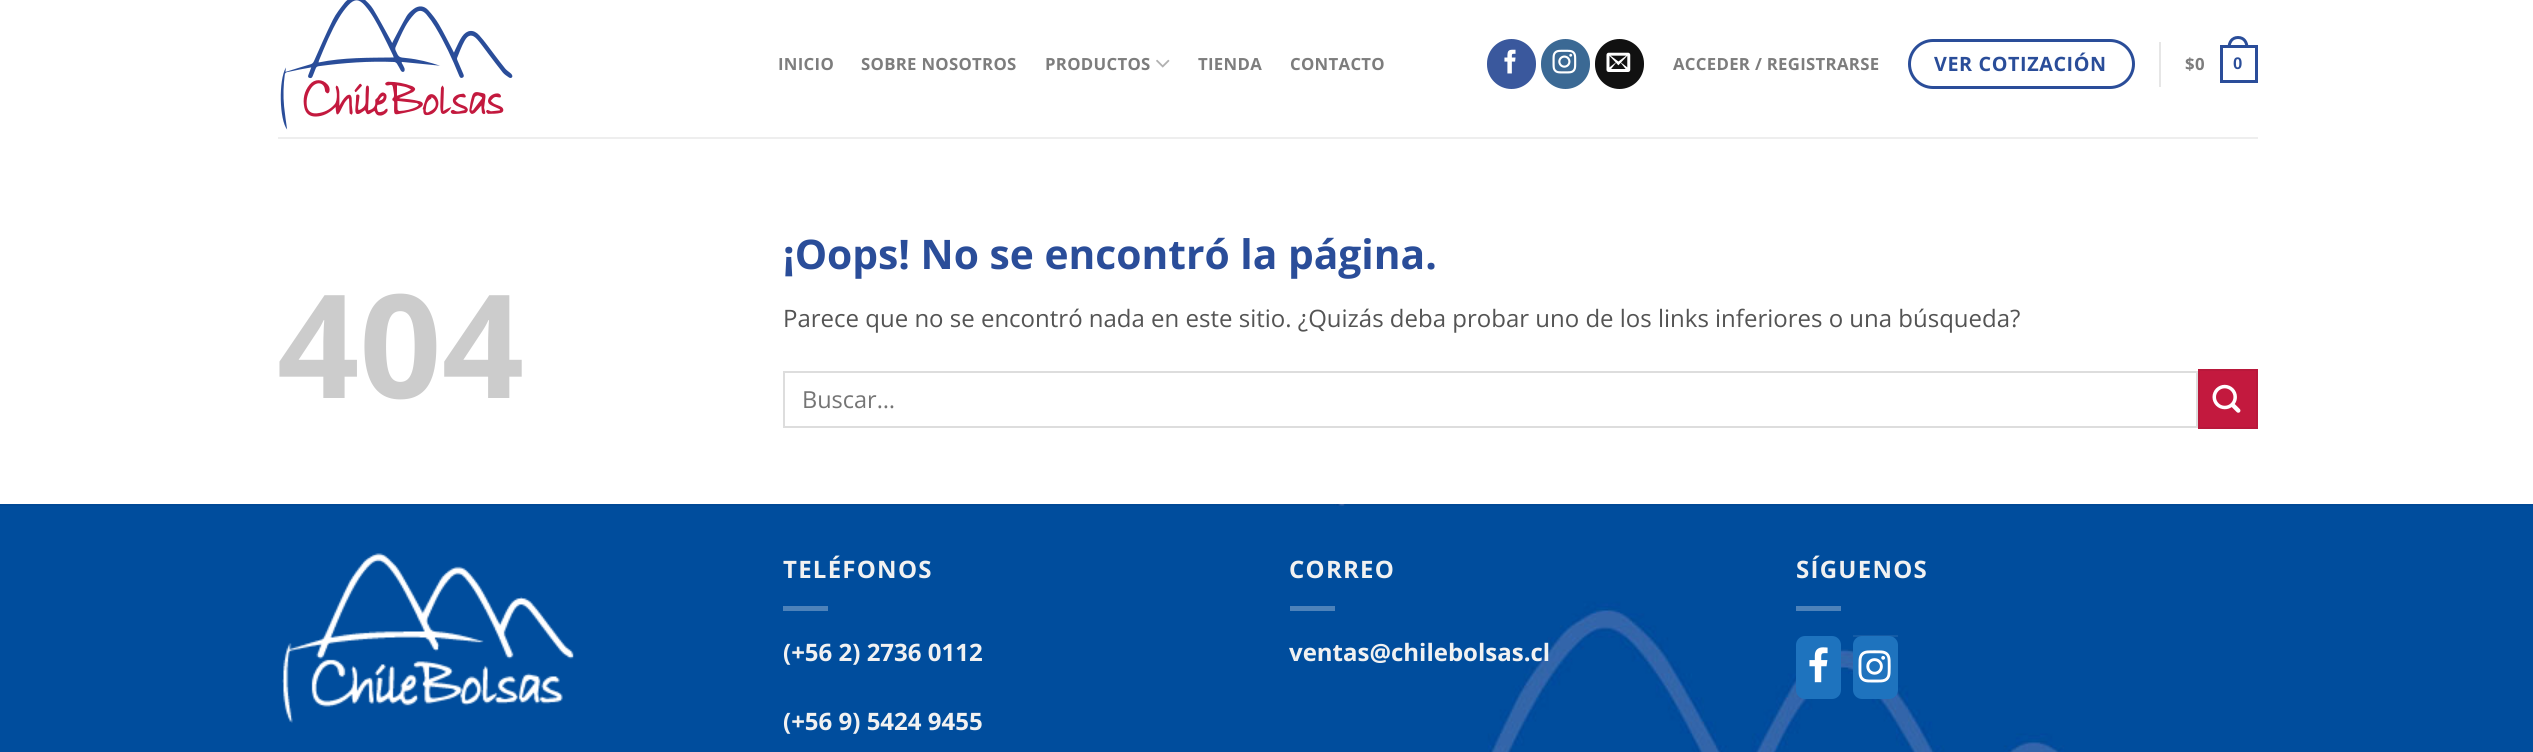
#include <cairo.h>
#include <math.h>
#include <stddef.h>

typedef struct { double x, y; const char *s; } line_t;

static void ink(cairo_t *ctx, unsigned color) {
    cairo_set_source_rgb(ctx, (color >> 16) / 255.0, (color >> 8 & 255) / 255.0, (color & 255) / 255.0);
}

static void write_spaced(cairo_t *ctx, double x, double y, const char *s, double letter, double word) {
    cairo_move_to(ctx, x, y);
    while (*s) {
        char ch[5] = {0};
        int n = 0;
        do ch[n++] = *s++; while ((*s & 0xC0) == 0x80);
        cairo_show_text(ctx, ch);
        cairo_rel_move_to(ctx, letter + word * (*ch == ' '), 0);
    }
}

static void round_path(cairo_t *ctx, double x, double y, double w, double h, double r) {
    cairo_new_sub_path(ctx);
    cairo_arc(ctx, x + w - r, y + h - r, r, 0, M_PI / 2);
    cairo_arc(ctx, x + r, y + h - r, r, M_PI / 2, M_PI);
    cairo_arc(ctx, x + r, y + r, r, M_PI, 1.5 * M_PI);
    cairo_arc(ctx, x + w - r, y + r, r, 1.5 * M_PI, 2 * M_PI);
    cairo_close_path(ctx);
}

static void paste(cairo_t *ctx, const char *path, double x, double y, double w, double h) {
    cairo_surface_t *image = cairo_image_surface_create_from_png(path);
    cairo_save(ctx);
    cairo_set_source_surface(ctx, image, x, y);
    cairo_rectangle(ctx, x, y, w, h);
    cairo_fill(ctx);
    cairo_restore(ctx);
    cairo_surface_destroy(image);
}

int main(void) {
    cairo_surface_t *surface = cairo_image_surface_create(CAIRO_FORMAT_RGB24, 2533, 752);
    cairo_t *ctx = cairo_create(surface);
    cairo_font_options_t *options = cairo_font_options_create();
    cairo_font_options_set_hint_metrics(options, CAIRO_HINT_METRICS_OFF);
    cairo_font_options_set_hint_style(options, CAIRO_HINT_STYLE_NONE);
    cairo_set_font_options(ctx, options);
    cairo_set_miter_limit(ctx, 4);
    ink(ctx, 0xFFFFFF);
    cairo_paint(ctx);
    paste(ctx, "media/1.png", 280, 0, 233, 130);
    cairo_select_font_face(ctx, "Open Sans", CAIRO_FONT_SLANT_NORMAL, CAIRO_FONT_WEIGHT_BOLD);
    cairo_set_font_size(ctx, 16.75);
    ink(ctx, 0x7D7D7D);
    {
        static const line_t items[] = {
            {778, 70, "INICIO"},
            {861, 70, "SOBRE NOSOTROS"},
            {1045, 70, "PRODUCTOS"},
        };
        for (size_t i = 0; i < sizeof items / sizeof *items; i++) {
            write_spaced(ctx, items[i].x, items[i].y, items[i].s, 0.3, 0);
        }
    }
    paste(ctx, "media/2.png", 1156, 59, 14, 9);
    write_spaced(ctx, 1198, 70, "TIENDA", 0.3, 0);
    write_spaced(ctx, 1290, 70, "CONTACTO", 0.3, 0);
    ink(ctx, 0x3A589D);
    round_path(ctx, 1488, 40, 47, 48, 23.5);
    cairo_fill_preserve(ctx);
    cairo_stroke(ctx);
    paste(ctx, "media/3.png", 1504, 49, 12, 25);
    ink(ctx, 0x3B6994);
    round_path(ctx, 1542, 40, 47, 48, 23.5);
    cairo_fill_preserve(ctx);
    cairo_stroke(ctx);
    paste(ctx, "media/4.png", 1552, 49, 25, 25);
    ink(ctx, 0x111111);
    round_path(ctx, 1596, 40, 47, 48, 23.5);
    cairo_fill_preserve(ctx);
    cairo_stroke(ctx);
    paste(ctx, "media/5.png", 1606, 52, 25, 20);
    ink(ctx, 0x7D7D7D);
    write_spaced(ctx, 1673, 70, "ACCEDER / REGISTRARSE", 0.3, 0);
    round_path(ctx, 1909.5, 40.5, 224, 47, 23.5);
    ink(ctx, 0x2A4D99);
    cairo_set_line_width(ctx, 3);
    cairo_stroke(ctx);
    cairo_set_font_size(ctx, 19.75);
    write_spaced(ctx, 1934, 71, "VER COTIZACIÓN", 0.6, 0);
    ink(ctx, 0xE6E6E6);
    cairo_rectangle(ctx, 2159, 42, 2, 45);
    cairo_fill(ctx);
    cairo_set_font_size(ctx, 16.75);
    ink(ctx, 0x7D7D7D);
    write_spaced(ctx, 2185, 70, "$0", 0.3, 0);
    cairo_rectangle(ctx, 2221.5, 46.5, 35, 35);
    ink(ctx, 0x2A4D99);
    cairo_stroke(ctx);
    cairo_set_fill_rule(ctx, CAIRO_FILL_RULE_EVEN_ODD);
    cairo_new_path(ctx);
    cairo_move_to(ctx, 2238, 36);
    cairo_curve_to(ctx, 2245, 36, 2248.5, 41.5, 2248.5, 48);
    cairo_line_to(ctx, 2227.5, 48);
    cairo_curve_to(ctx, 2227.5, 41.5, 2231, 36, 2238, 36);
    cairo_close_path(ctx);
    cairo_move_to(ctx, 2238, 39);
    cairo_curve_to(ctx, 2243.5, 39, 2245.5, 43.5, 2245.5, 48);
    cairo_line_to(ctx, 2230.5, 48);
    cairo_curve_to(ctx, 2230.5, 43.5, 2232.5, 39, 2238, 39);
    cairo_close_path(ctx);
    cairo_fill(ctx);
    cairo_select_font_face(ctx, "Liberation Sans", CAIRO_FONT_SLANT_NORMAL, CAIRO_FONT_WEIGHT_BOLD);
    write_spaced(ctx, 2233, 69, "0", 0.3, 0);
    ink(ctx, 0xEEEEEE);
    cairo_rectangle(ctx, 278, 137, 1980, 2);
    cairo_fill(ctx);
    cairo_select_font_face(ctx, "Open Sans", CAIRO_FONT_SLANT_NORMAL, CAIRO_FONT_WEIGHT_BOLD);
    cairo_set_font_size(ctx, 144);
    ink(ctx, 0xCCCCCC);
    cairo_move_to(ctx, 277, 398);
    cairo_show_text(ctx, "404");
    cairo_set_font_size(ctx, 40.75);
    ink(ctx, 0x2A4D99);
    cairo_move_to(ctx, 783, 269);
    cairo_show_text(ctx, "¡Oops! No se encontró la página.");
    cairo_select_font_face(ctx, "Open Sans", CAIRO_FONT_SLANT_NORMAL, CAIRO_FONT_WEIGHT_NORMAL);
    cairo_set_font_size(ctx, 24);
    ink(ctx, 0x545454);
    cairo_move_to(ctx, 783, 327);
    cairo_show_text(ctx, "Parece que no se encontró nada en este sitio. ¿Quizás deba probar uno de los links inferiores o una búsqueda?");
    cairo_rectangle(ctx, 784, 372, 1413, 55);
    ink(ctx, 0xDDDDDD);
    cairo_set_line_width(ctx, 2);
    cairo_stroke(ctx);
    cairo_set_font_size(ctx, 23.5);
    ink(ctx, 0x757575);
    cairo_move_to(ctx, 802, 408);
    cairo_show_text(ctx, "Buscar…");
    ink(ctx, 0xC3193E);
    cairo_rectangle(ctx, 2199, 370, 58, 58);
    cairo_fill_preserve(ctx);
    ink(ctx, 0xB9183B);
    cairo_stroke(ctx);
    paste(ctx, "media/6.png", 2212, 384, 29, 29);
    paste(ctx, "media/7.png", 0, 504, 2533, 248);
    cairo_set_source_rgba(ctx, 0, 0, 0, 0.05);
    cairo_rectangle(ctx, 0, 504, 2533, 2);
    cairo_fill(ctx);
    paste(ctx, "media/8.png", 282, 553, 292, 170);
    cairo_select_font_face(ctx, "Open Sans", CAIRO_FONT_SLANT_NORMAL, CAIRO_FONT_WEIGHT_BOLD);
    cairo_set_font_size(ctx, 24);
    ink(ctx, 0xF1F1F1);
    write_spaced(ctx, 783, 578, "TELÉFONOS", 1.25, 0);
    ink(ctx, 0x4D82BA);
    cairo_rectangle(ctx, 783, 606, 45, 5);
    cairo_fill(ctx);
    ink(ctx, 0xF1F1F1);
    cairo_move_to(ctx, 783, 661);
    cairo_show_text(ctx, "(+56 2) 2736 0112");
    cairo_move_to(ctx, 783, 730);
    cairo_show_text(ctx, "(+56 9) 5424 9455");
    write_spaced(ctx, 1289, 578, "CORREO", 1.25, 0);
    ink(ctx, 0x4D82BA);
    cairo_rectangle(ctx, 1290, 606, 45, 5);
    cairo_fill(ctx);
    ink(ctx, 0xF1F1F1);
    cairo_move_to(ctx, 1289, 661);
    cairo_show_text(ctx, "ventas@chilebolsas.cl");
    write_spaced(ctx, 1796, 578, "SÍGUENOS", 1.25, 0);
    ink(ctx, 0x4D82BA);
    cairo_rectangle(ctx, 1796, 606, 45, 5);
    cairo_fill(ctx);
    ink(ctx, 0x1E73BE);
    round_path(ctx, 1796, 636, 45, 63, 9);
    cairo_fill(ctx);
    paste(ctx, "media/9.png", 1809, 647, 19, 36);
    ink(ctx, 0x145BA5);
    cairo_rectangle(ctx, 1853, 635, 45, 2);
    cairo_fill(ctx);
    ink(ctx, 0x1E73BE);
    round_path(ctx, 1853, 636, 45, 63, 9);
    cairo_fill(ctx);
    paste(ctx, "media/10.png", 1858, 650, 33, 33);
    cairo_surface_write_to_png(surface, "image.png");
    cairo_font_options_destroy(options);
    cairo_destroy(ctx);
    cairo_surface_destroy(surface);
    return 0;
}
